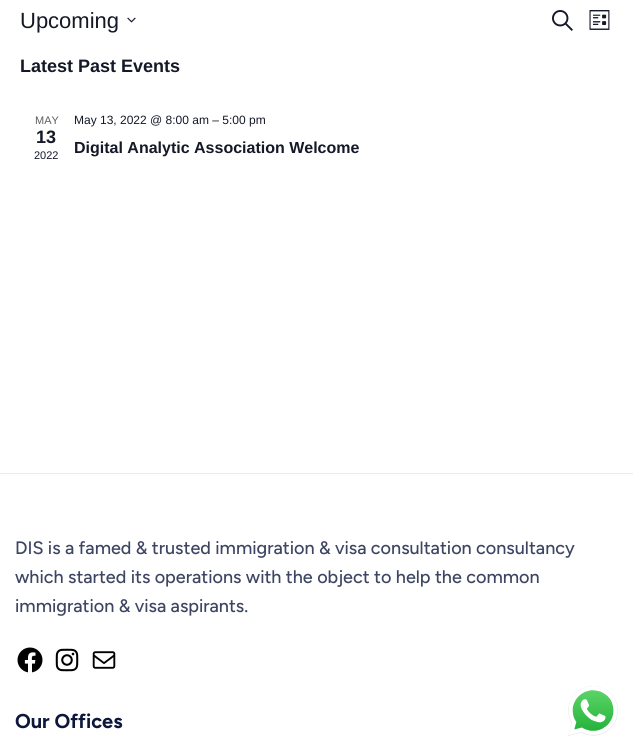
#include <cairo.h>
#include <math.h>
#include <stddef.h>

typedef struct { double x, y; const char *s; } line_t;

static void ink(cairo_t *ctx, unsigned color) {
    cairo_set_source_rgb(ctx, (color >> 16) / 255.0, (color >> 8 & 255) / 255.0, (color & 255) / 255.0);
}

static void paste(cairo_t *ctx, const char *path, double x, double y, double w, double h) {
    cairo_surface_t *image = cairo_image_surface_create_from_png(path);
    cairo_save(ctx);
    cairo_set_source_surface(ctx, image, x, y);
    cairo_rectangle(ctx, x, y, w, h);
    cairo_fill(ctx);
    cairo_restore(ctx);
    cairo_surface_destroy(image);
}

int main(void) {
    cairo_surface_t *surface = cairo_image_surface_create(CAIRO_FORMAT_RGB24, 633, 751);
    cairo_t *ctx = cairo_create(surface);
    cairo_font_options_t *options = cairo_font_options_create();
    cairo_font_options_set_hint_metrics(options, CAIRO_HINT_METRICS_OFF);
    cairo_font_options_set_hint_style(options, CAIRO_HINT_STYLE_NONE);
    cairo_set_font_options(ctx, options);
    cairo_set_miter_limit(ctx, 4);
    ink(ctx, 0xFFFFFF);
    cairo_paint(ctx);
    cairo_select_font_face(ctx, "Liberation Sans", CAIRO_FONT_SLANT_NORMAL, CAIRO_FONT_WEIGHT_NORMAL);
    cairo_set_font_size(ctx, 22);
    ink(ctx, 0x141827);
    cairo_move_to(ctx, 20, 28);
    cairo_show_text(ctx, "Upcoming");
    paste(ctx, "media/1.png", 127, 17, 9, 6);
    paste(ctx, "media/2.png", 552, 10, 21, 21);
    paste(ctx, "media/3.png", 589, 10, 21, 20);
    cairo_select_font_face(ctx, "Liberation Sans", CAIRO_FONT_SLANT_NORMAL, CAIRO_FONT_WEIGHT_BOLD);
    cairo_set_font_size(ctx, 18);
    cairo_move_to(ctx, 20, 72);
    cairo_show_text(ctx, "Latest Past Events");
    cairo_select_font_face(ctx, "Liberation Sans", CAIRO_FONT_SLANT_NORMAL, CAIRO_FONT_WEIGHT_NORMAL);
    cairo_set_font_size(ctx, 11);
    ink(ctx, 0x5D5D5D);
    cairo_move_to(ctx, 35, 124);
    cairo_show_text(ctx, "MAY");
    cairo_select_font_face(ctx, "Liberation Sans", CAIRO_FONT_SLANT_NORMAL, CAIRO_FONT_WEIGHT_BOLD);
    cairo_set_font_size(ctx, 18);
    ink(ctx, 0x141827);
    cairo_move_to(ctx, 36, 143);
    cairo_show_text(ctx, "13");
    cairo_select_font_face(ctx, "Liberation Sans", CAIRO_FONT_SLANT_NORMAL, CAIRO_FONT_WEIGHT_NORMAL);
    cairo_set_font_size(ctx, 11);
    cairo_move_to(ctx, 34, 159);
    cairo_show_text(ctx, "2022");
    cairo_set_font_size(ctx, 12);
    cairo_move_to(ctx, 74, 124);
    cairo_show_text(ctx, "May 13, 2022 @ 8:00 am – 5:00 pm");
    cairo_select_font_face(ctx, "Liberation Sans", CAIRO_FONT_SLANT_NORMAL, CAIRO_FONT_WEIGHT_BOLD);
    cairo_set_font_size(ctx, 16);
    cairo_move_to(ctx, 74, 153);
    cairo_show_text(ctx, "Digital Analytic Association Welcome");
    ink(ctx, 0xEBEBEB);
    cairo_rectangle(ctx, 0, 473, 633, 1);
    cairo_fill(ctx);
    cairo_select_font_face(ctx, "Figtree Medium", CAIRO_FONT_SLANT_NORMAL, CAIRO_FONT_WEIGHT_NORMAL);
    cairo_set_font_size(ctx, 18);
    ink(ctx, 0x3D4562);
    {
        static const line_t items[] = {
            {15, 554, "DIS is a famed & trusted immigration & visa consultation consultancy"},
            {15, 583, "which started its operations with the object to help the common"},
            {15, 612, "immigration & visa aspirants."},
        };
        for (size_t i = 0; i < sizeof items / sizeof *items; i++) {
            cairo_move_to(ctx, items[i].x, items[i].y);
            cairo_show_text(ctx, items[i].s);
        }
    }
    paste(ctx, "media/4.png", 17, 647, 26, 26);
    paste(ctx, "media/5.png", 55, 648, 24, 24);
    paste(ctx, "media/6.png", 92, 651, 24, 18);
    cairo_select_font_face(ctx, "Figtree", CAIRO_FONT_SLANT_NORMAL, CAIRO_FONT_WEIGHT_BOLD);
    cairo_set_font_size(ctx, 20);
    ink(ctx, 0x0D173B);
    cairo_move_to(ctx, 15, 728);
    cairo_show_text(ctx, "Our Offices");
    paste(ctx, "media/7.png", 568, 686, 50, 50);
    cairo_surface_write_to_png(surface, "image.png");
    cairo_font_options_destroy(options);
    cairo_destroy(ctx);
    cairo_surface_destroy(surface);
    return 0;
}
